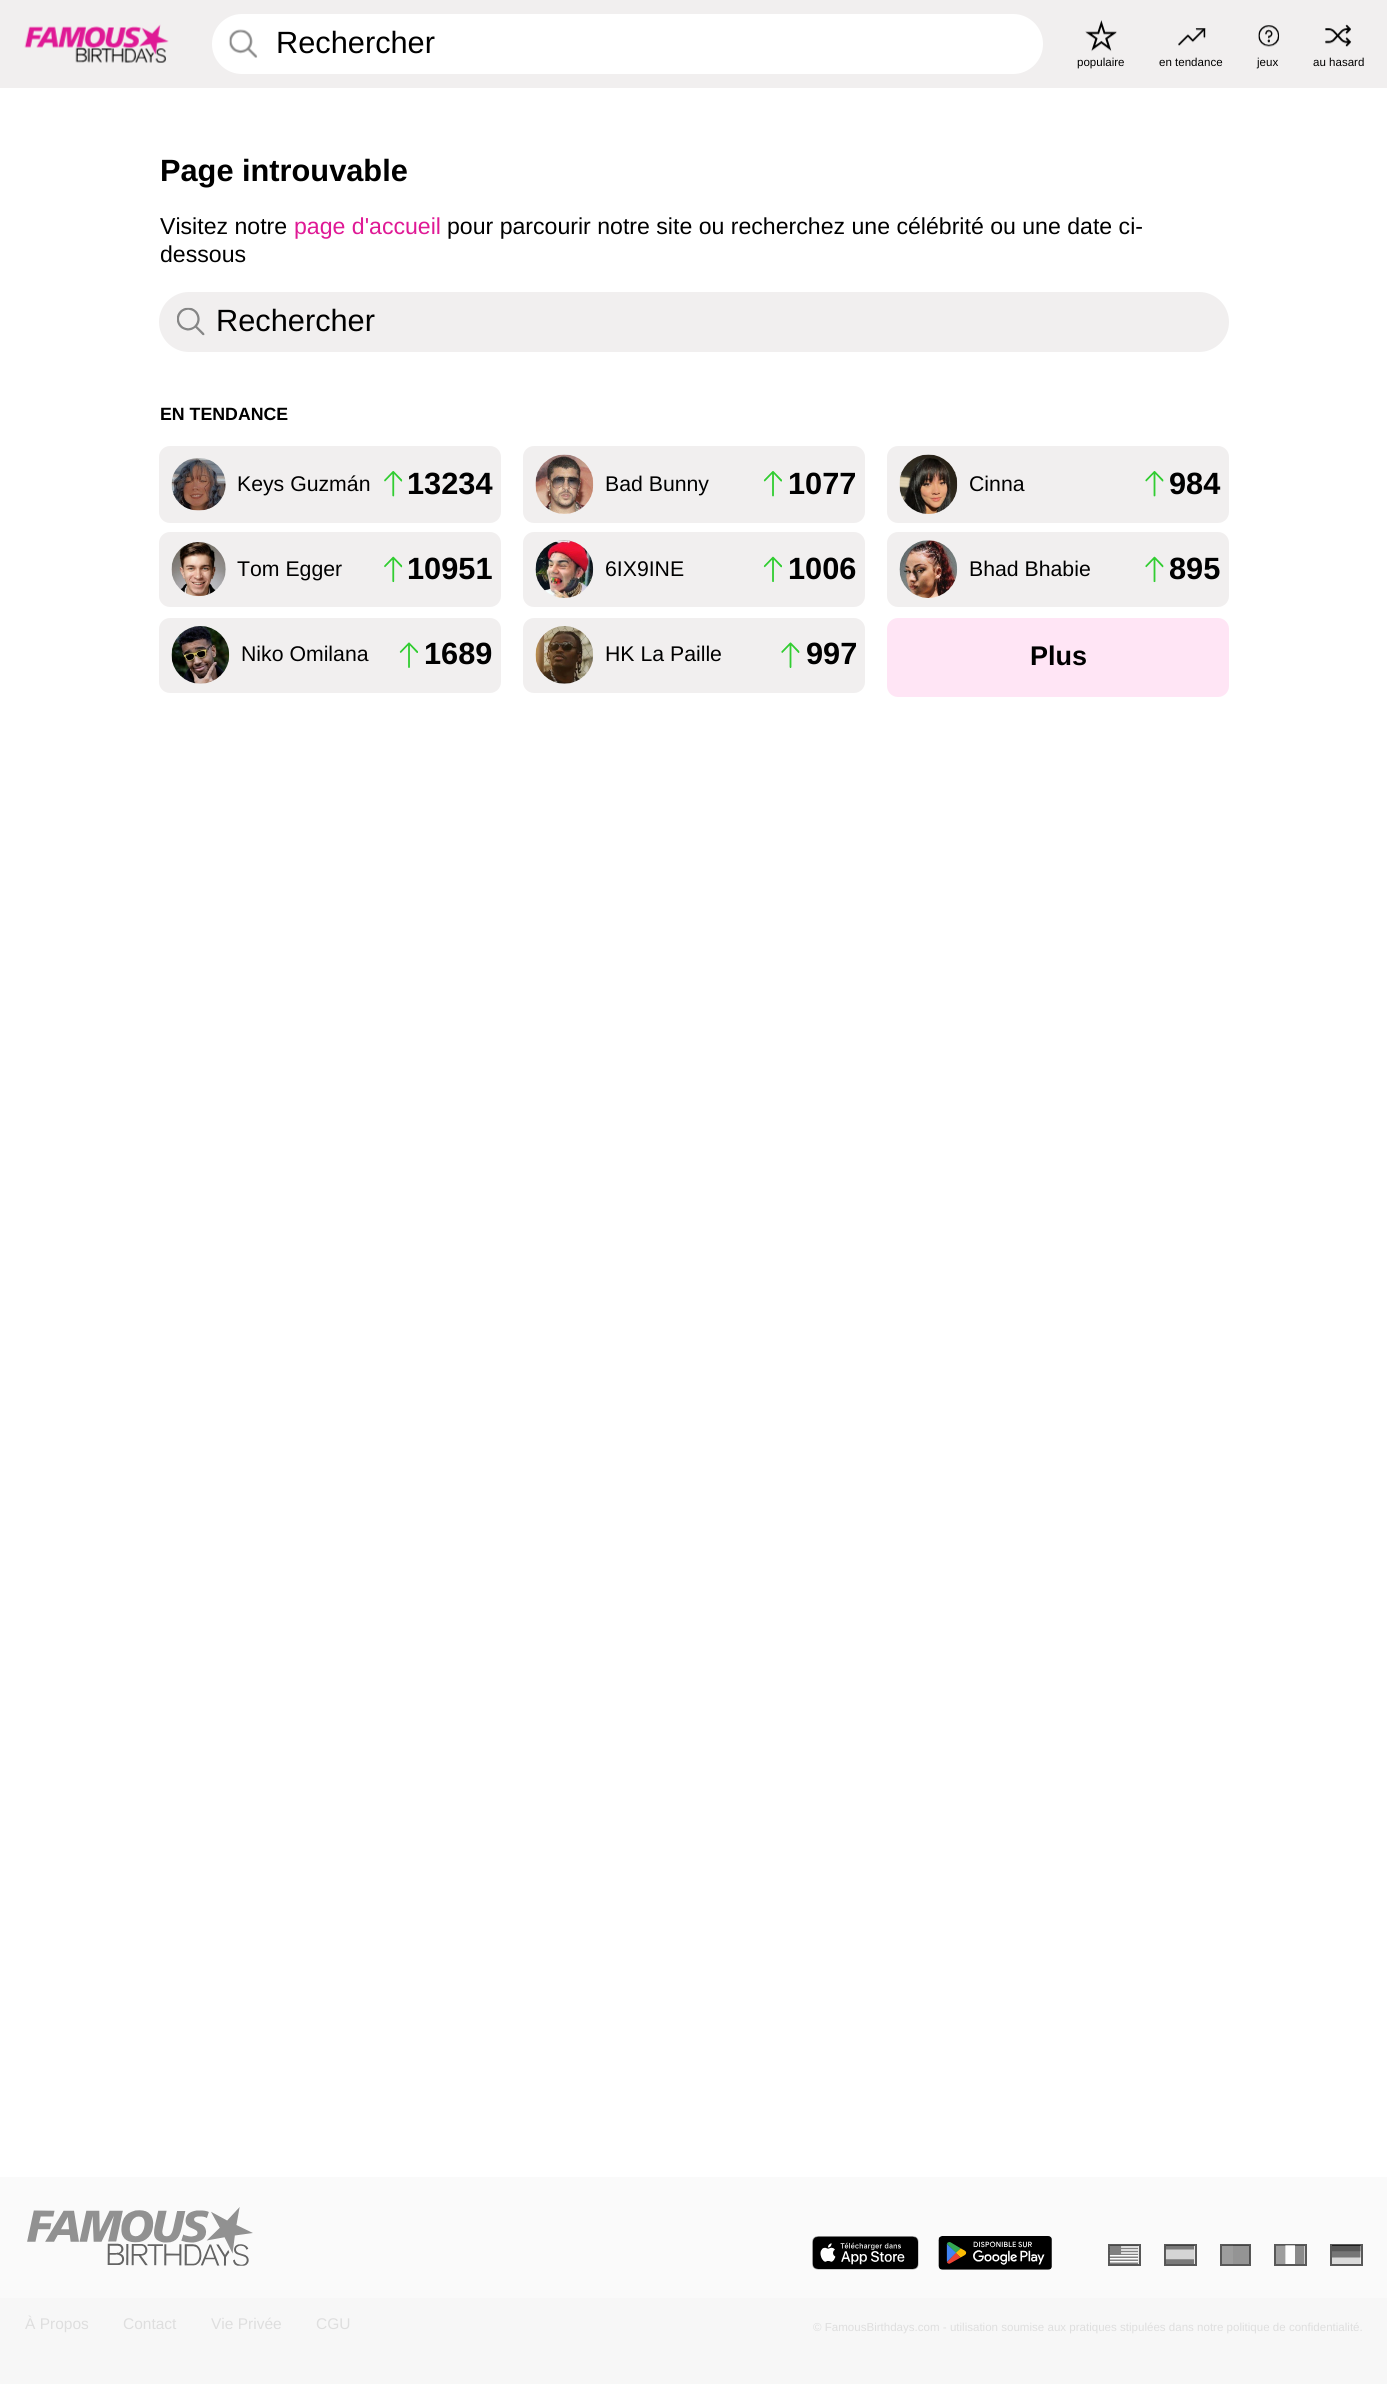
#include <cairo.h>
#include <math.h>
#include <stddef.h>

typedef struct { double x, y; const char *s; } line_t;

static void ink(cairo_t *ctx, unsigned color) {
    cairo_set_source_rgb(ctx, (color >> 16) / 255.0, (color >> 8 & 255) / 255.0, (color & 255) / 255.0);
}

static void round_path(cairo_t *ctx, double x, double y, double w, double h, double r) {
    cairo_new_sub_path(ctx);
    cairo_arc(ctx, x + w - r, y + h - r, r, 0, M_PI / 2);
    cairo_arc(ctx, x + r, y + h - r, r, M_PI / 2, M_PI);
    cairo_arc(ctx, x + r, y + r, r, M_PI, 1.5 * M_PI);
    cairo_arc(ctx, x + w - r, y + r, r, 1.5 * M_PI, 2 * M_PI);
    cairo_close_path(ctx);
}

static void paste(cairo_t *ctx, const char *path, double x, double y, double w, double h) {
    cairo_surface_t *image = cairo_image_surface_create_from_png(path);
    cairo_save(ctx);
    cairo_set_source_surface(ctx, image, x, y);
    cairo_rectangle(ctx, x, y, w, h);
    cairo_fill(ctx);
    cairo_restore(ctx);
    cairo_surface_destroy(image);
}

int main(void) {
    cairo_surface_t *surface = cairo_image_surface_create(CAIRO_FORMAT_RGB24, 1387, 2384);
    cairo_t *ctx = cairo_create(surface);
    cairo_font_options_t *options = cairo_font_options_create();
    cairo_font_options_set_hint_metrics(options, CAIRO_HINT_METRICS_OFF);
    cairo_font_options_set_hint_style(options, CAIRO_HINT_STYLE_NONE);
    cairo_set_font_options(ctx, options);
    cairo_set_miter_limit(ctx, 4);
    ink(ctx, 0xFFFFFF);
    cairo_paint(ctx);
    ink(ctx, 0xF1EFEF);
    cairo_rectangle(ctx, 0, 0, 1387, 88);
    cairo_fill(ctx);
    paste(ctx, "media/1.png", 24, 24, 145, 39);
    ink(ctx, 0xFFFFFF);
    round_path(ctx, 213, 15, 829, 58, 29);
    cairo_fill_preserve(ctx);
    cairo_stroke(ctx);
    paste(ctx, "media/2.png", 228, 29, 30, 29);
    cairo_select_font_face(ctx, "Liberation Sans", CAIRO_FONT_SLANT_NORMAL, CAIRO_FONT_WEIGHT_NORMAL);
    cairo_set_font_size(ctx, 30.75);
    ink(ctx, 0x000000);
    cairo_move_to(ctx, 276, 53);
    cairo_show_text(ctx, "Rechercher");
    paste(ctx, "media/3.png", 1085, 20, 32, 32);
    cairo_set_font_size(ctx, 11.55);
    cairo_move_to(ctx, 1077, 66);
    cairo_show_text(ctx, "populaire");
    paste(ctx, "media/4.png", 1178, 28, 28, 18);
    cairo_move_to(ctx, 1159, 66);
    cairo_show_text(ctx, "en tendance");
    paste(ctx, "media/5.png", 1258, 25, 22, 22);
    cairo_move_to(ctx, 1257, 66);
    cairo_show_text(ctx, "jeux");
    paste(ctx, "media/6.png", 1325, 24, 27, 23);
    cairo_move_to(ctx, 1313, 66);
    cairo_show_text(ctx, "au hasard");
    cairo_select_font_face(ctx, "Liberation Sans", CAIRO_FONT_SLANT_NORMAL, CAIRO_FONT_WEIGHT_BOLD);
    cairo_set_font_size(ctx, 30.75);
    cairo_move_to(ctx, 160, 181);
    cairo_show_text(ctx, "Page introuvable");
    cairo_select_font_face(ctx, "Liberation Sans", CAIRO_FONT_SLANT_NORMAL, CAIRO_FONT_WEIGHT_NORMAL);
    cairo_set_font_size(ctx, 23.1);
    cairo_move_to(ctx, 160, 234);
    cairo_show_text(ctx, "Visitez notre");
    ink(ctx, 0xDF1995);
    cairo_move_to(ctx, 294, 234);
    cairo_show_text(ctx, "page d'accueil");
    ink(ctx, 0x000000);
    cairo_move_to(ctx, 447, 234);
    cairo_show_text(ctx, "pour parcourir notre site ou recherchez une célébrité ou une date ci-");
    cairo_move_to(ctx, 160, 262);
    cairo_show_text(ctx, "dessous");
    ink(ctx, 0xF1EFEF);
    round_path(ctx, 160, 293, 1068, 58, 29);
    cairo_fill_preserve(ctx);
    cairo_stroke(ctx);
    paste(ctx, "media/7.png", 177, 307, 28, 29);
    cairo_set_font_size(ctx, 30.75);
    ink(ctx, 0x000000);
    cairo_move_to(ctx, 216, 331);
    cairo_show_text(ctx, "Rechercher");
    cairo_select_font_face(ctx, "Liberation Sans", CAIRO_FONT_SLANT_NORMAL, CAIRO_FONT_WEIGHT_BOLD);
    cairo_set_font_size(ctx, 17.75);
    cairo_move_to(ctx, 160, 420);
    cairo_show_text(ctx, "EN TENDANCE");
    ink(ctx, 0xF1EFEF);
    round_path(ctx, 159, 446, 342, 77, 11);
    cairo_fill(ctx);
    paste(ctx, "media/8.png", 171, 458, 55, 53);
    cairo_select_font_face(ctx, "Liberation Sans", CAIRO_FONT_SLANT_NORMAL, CAIRO_FONT_WEIGHT_NORMAL);
    cairo_set_font_size(ctx, 21.25);
    ink(ctx, 0x000000);
    cairo_move_to(ctx, 237, 491);
    cairo_show_text(ctx, "Keys Guzmán");
    paste(ctx, "media/9.png", 384, 471, 19, 26);
    cairo_select_font_face(ctx, "Liberation Sans", CAIRO_FONT_SLANT_NORMAL, CAIRO_FONT_WEIGHT_BOLD);
    cairo_set_font_size(ctx, 30.75);
    cairo_move_to(ctx, 407, 494);
    cairo_show_text(ctx, "13234");
    ink(ctx, 0xF1EFEF);
    round_path(ctx, 159, 532, 342, 75, 11);
    cairo_fill(ctx);
    paste(ctx, "media/10.png", 171, 542, 55, 55);
    cairo_select_font_face(ctx, "Liberation Sans", CAIRO_FONT_SLANT_NORMAL, CAIRO_FONT_WEIGHT_NORMAL);
    cairo_set_font_size(ctx, 21.25);
    ink(ctx, 0x000000);
    cairo_move_to(ctx, 237, 576);
    cairo_show_text(ctx, "Tom Egger");
    paste(ctx, "media/11.png", 384, 556, 19, 27);
    cairo_select_font_face(ctx, "Liberation Sans", CAIRO_FONT_SLANT_NORMAL, CAIRO_FONT_WEIGHT_BOLD);
    cairo_set_font_size(ctx, 30.75);
    cairo_move_to(ctx, 407, 579);
    cairo_show_text(ctx, "10951");
    ink(ctx, 0xF1EFEF);
    round_path(ctx, 159, 618, 342, 75, 11);
    cairo_fill(ctx);
    paste(ctx, "media/12.png", 171, 626, 59, 58);
    cairo_select_font_face(ctx, "Liberation Sans", CAIRO_FONT_SLANT_NORMAL, CAIRO_FONT_WEIGHT_NORMAL);
    cairo_set_font_size(ctx, 21.25);
    ink(ctx, 0x000000);
    cairo_move_to(ctx, 241, 661);
    cairo_show_text(ctx, "Niko Omilana");
    paste(ctx, "media/13.png", 399, 642, 19, 26);
    cairo_select_font_face(ctx, "Liberation Sans", CAIRO_FONT_SLANT_NORMAL, CAIRO_FONT_WEIGHT_BOLD);
    cairo_set_font_size(ctx, 30.75);
    cairo_move_to(ctx, 424, 664);
    cairo_show_text(ctx, "1689");
    ink(ctx, 0xF1EFEF);
    round_path(ctx, 523, 446, 342, 77, 11);
    cairo_fill(ctx);
    paste(ctx, "media/14.png", 535, 454, 59, 60);
    cairo_select_font_face(ctx, "Liberation Sans", CAIRO_FONT_SLANT_NORMAL, CAIRO_FONT_WEIGHT_NORMAL);
    cairo_set_font_size(ctx, 21.25);
    ink(ctx, 0x000000);
    cairo_move_to(ctx, 605, 491);
    cairo_show_text(ctx, "Bad Bunny");
    paste(ctx, "media/15.png", 763, 471, 19, 26);
    cairo_select_font_face(ctx, "Liberation Sans", CAIRO_FONT_SLANT_NORMAL, CAIRO_FONT_WEIGHT_BOLD);
    cairo_set_font_size(ctx, 30.75);
    cairo_move_to(ctx, 788, 494);
    cairo_show_text(ctx, "1077");
    ink(ctx, 0xF1EFEF);
    round_path(ctx, 523, 532, 342, 75, 11);
    cairo_fill(ctx);
    paste(ctx, "media/16.png", 535, 540, 59, 58);
    cairo_select_font_face(ctx, "Liberation Sans", CAIRO_FONT_SLANT_NORMAL, CAIRO_FONT_WEIGHT_NORMAL);
    cairo_set_font_size(ctx, 21.25);
    ink(ctx, 0x000000);
    cairo_move_to(ctx, 605, 576);
    cairo_show_text(ctx, "6IX9INE");
    paste(ctx, "media/17.png", 763, 556, 19, 26);
    cairo_select_font_face(ctx, "Liberation Sans", CAIRO_FONT_SLANT_NORMAL, CAIRO_FONT_WEIGHT_BOLD);
    cairo_set_font_size(ctx, 30.75);
    cairo_move_to(ctx, 788, 579);
    cairo_show_text(ctx, "1006");
    ink(ctx, 0xF1EFEF);
    round_path(ctx, 523, 618, 342, 75, 11);
    cairo_fill(ctx);
    paste(ctx, "media/18.png", 535, 626, 59, 58);
    cairo_select_font_face(ctx, "Liberation Sans", CAIRO_FONT_SLANT_NORMAL, CAIRO_FONT_WEIGHT_NORMAL);
    cairo_set_font_size(ctx, 21.25);
    ink(ctx, 0x000000);
    cairo_move_to(ctx, 605, 661);
    cairo_show_text(ctx, "HK La Paille");
    paste(ctx, "media/19.png", 781, 642, 19, 26);
    cairo_select_font_face(ctx, "Liberation Sans", CAIRO_FONT_SLANT_NORMAL, CAIRO_FONT_WEIGHT_BOLD);
    cairo_set_font_size(ctx, 30.75);
    cairo_move_to(ctx, 806, 664);
    cairo_show_text(ctx, "997");
    ink(ctx, 0xF1EFEF);
    round_path(ctx, 887, 446, 342, 77, 11);
    cairo_fill(ctx);
    paste(ctx, "media/20.png", 899, 454, 59, 60);
    cairo_select_font_face(ctx, "Liberation Sans", CAIRO_FONT_SLANT_NORMAL, CAIRO_FONT_WEIGHT_NORMAL);
    cairo_set_font_size(ctx, 21.25);
    ink(ctx, 0x000000);
    cairo_move_to(ctx, 969, 491);
    cairo_show_text(ctx, "Cinna");
    paste(ctx, "media/21.png", 1145, 471, 19, 26);
    cairo_select_font_face(ctx, "Liberation Sans", CAIRO_FONT_SLANT_NORMAL, CAIRO_FONT_WEIGHT_BOLD);
    cairo_set_font_size(ctx, 30.75);
    cairo_move_to(ctx, 1169, 494);
    cairo_show_text(ctx, "984");
    ink(ctx, 0xF1EFEF);
    round_path(ctx, 887, 532, 342, 75, 11);
    cairo_fill(ctx);
    paste(ctx, "media/22.png", 899, 540, 59, 58);
    cairo_select_font_face(ctx, "Liberation Sans", CAIRO_FONT_SLANT_NORMAL, CAIRO_FONT_WEIGHT_NORMAL);
    cairo_set_font_size(ctx, 21.25);
    ink(ctx, 0x000000);
    cairo_move_to(ctx, 969, 576);
    cairo_show_text(ctx, "Bhad Bhabie");
    paste(ctx, "media/23.png", 1145, 556, 19, 27);
    cairo_select_font_face(ctx, "Liberation Sans", CAIRO_FONT_SLANT_NORMAL, CAIRO_FONT_WEIGHT_BOLD);
    cairo_set_font_size(ctx, 30.75);
    cairo_move_to(ctx, 1169, 579);
    cairo_show_text(ctx, "895");
    ink(ctx, 0xFFE5F5);
    round_path(ctx, 888, 619, 340, 77, 10);
    cairo_fill_preserve(ctx);
    cairo_stroke(ctx);
    cairo_set_font_size(ctx, 27);
    ink(ctx, 0x000000);
    cairo_move_to(ctx, 1030, 665);
    cairo_show_text(ctx, "Plus");
    ink(ctx, 0xFAFAFA);
    cairo_rectangle(ctx, 0, 2177, 1387, 121);
    cairo_fill(ctx);
    ink(ctx, 0xF7F7F7);
    cairo_rectangle(ctx, 0, 2298, 1387, 86);
    cairo_fill(ctx);
    paste(ctx, "media/24.png", 27, 2207, 226, 59);
    paste(ctx, "media/25.png", 812, 2236, 107, 34);
    paste(ctx, "media/26.png", 938, 2236, 114, 34);
    cairo_rectangle(ctx, 1109, 2245, 31, 20);
    ink(ctx, 0x585858);
    cairo_stroke(ctx);
    paste(ctx, "media/27.png", 1109, 2245, 30, 19);
    cairo_rectangle(ctx, 1165, 2245, 31, 20);
    cairo_stroke(ctx);
    paste(ctx, "media/28.png", 1165, 2245, 30, 19);
    cairo_rectangle(ctx, 1221, 2245, 29, 20);
    cairo_stroke(ctx);
    paste(ctx, "media/29.png", 1222, 2245, 28, 19);
    cairo_rectangle(ctx, 1275, 2245, 31, 20);
    cairo_stroke(ctx);
    paste(ctx, "media/30.png", 1276, 2245, 29, 19);
    cairo_rectangle(ctx, 1331, 2245, 31, 20);
    cairo_stroke(ctx);
    paste(ctx, "media/31.png", 1332, 2245, 29, 19);
    cairo_select_font_face(ctx, "Liberation Sans", CAIRO_FONT_SLANT_NORMAL, CAIRO_FONT_WEIGHT_NORMAL);
    cairo_set_font_size(ctx, 15.5);
    ink(ctx, 0xDEDEDE);
    {
        static const line_t items[] = {
            {25, 2329, "À Propos"},
            {123, 2329, "Contact"},
            {211, 2329, "Vie Privée"},
            {316, 2329, "CGU"},
        };
        for (size_t i = 0; i < sizeof items / sizeof *items; i++) {
            cairo_move_to(ctx, items[i].x, items[i].y);
            cairo_show_text(ctx, items[i].s);
        }
    }
    cairo_set_font_size(ctx, 11.55);
    cairo_move_to(ctx, 813, 2331);
    cairo_show_text(ctx, "© FamousBirthdays.com - utilisation soumise aux pratiques stipulées dans notre politique de confidentialité.");
    cairo_surface_write_to_png(surface, "image.png");
    cairo_font_options_destroy(options);
    cairo_destroy(ctx);
    cairo_surface_destroy(surface);
    return 0;
}
